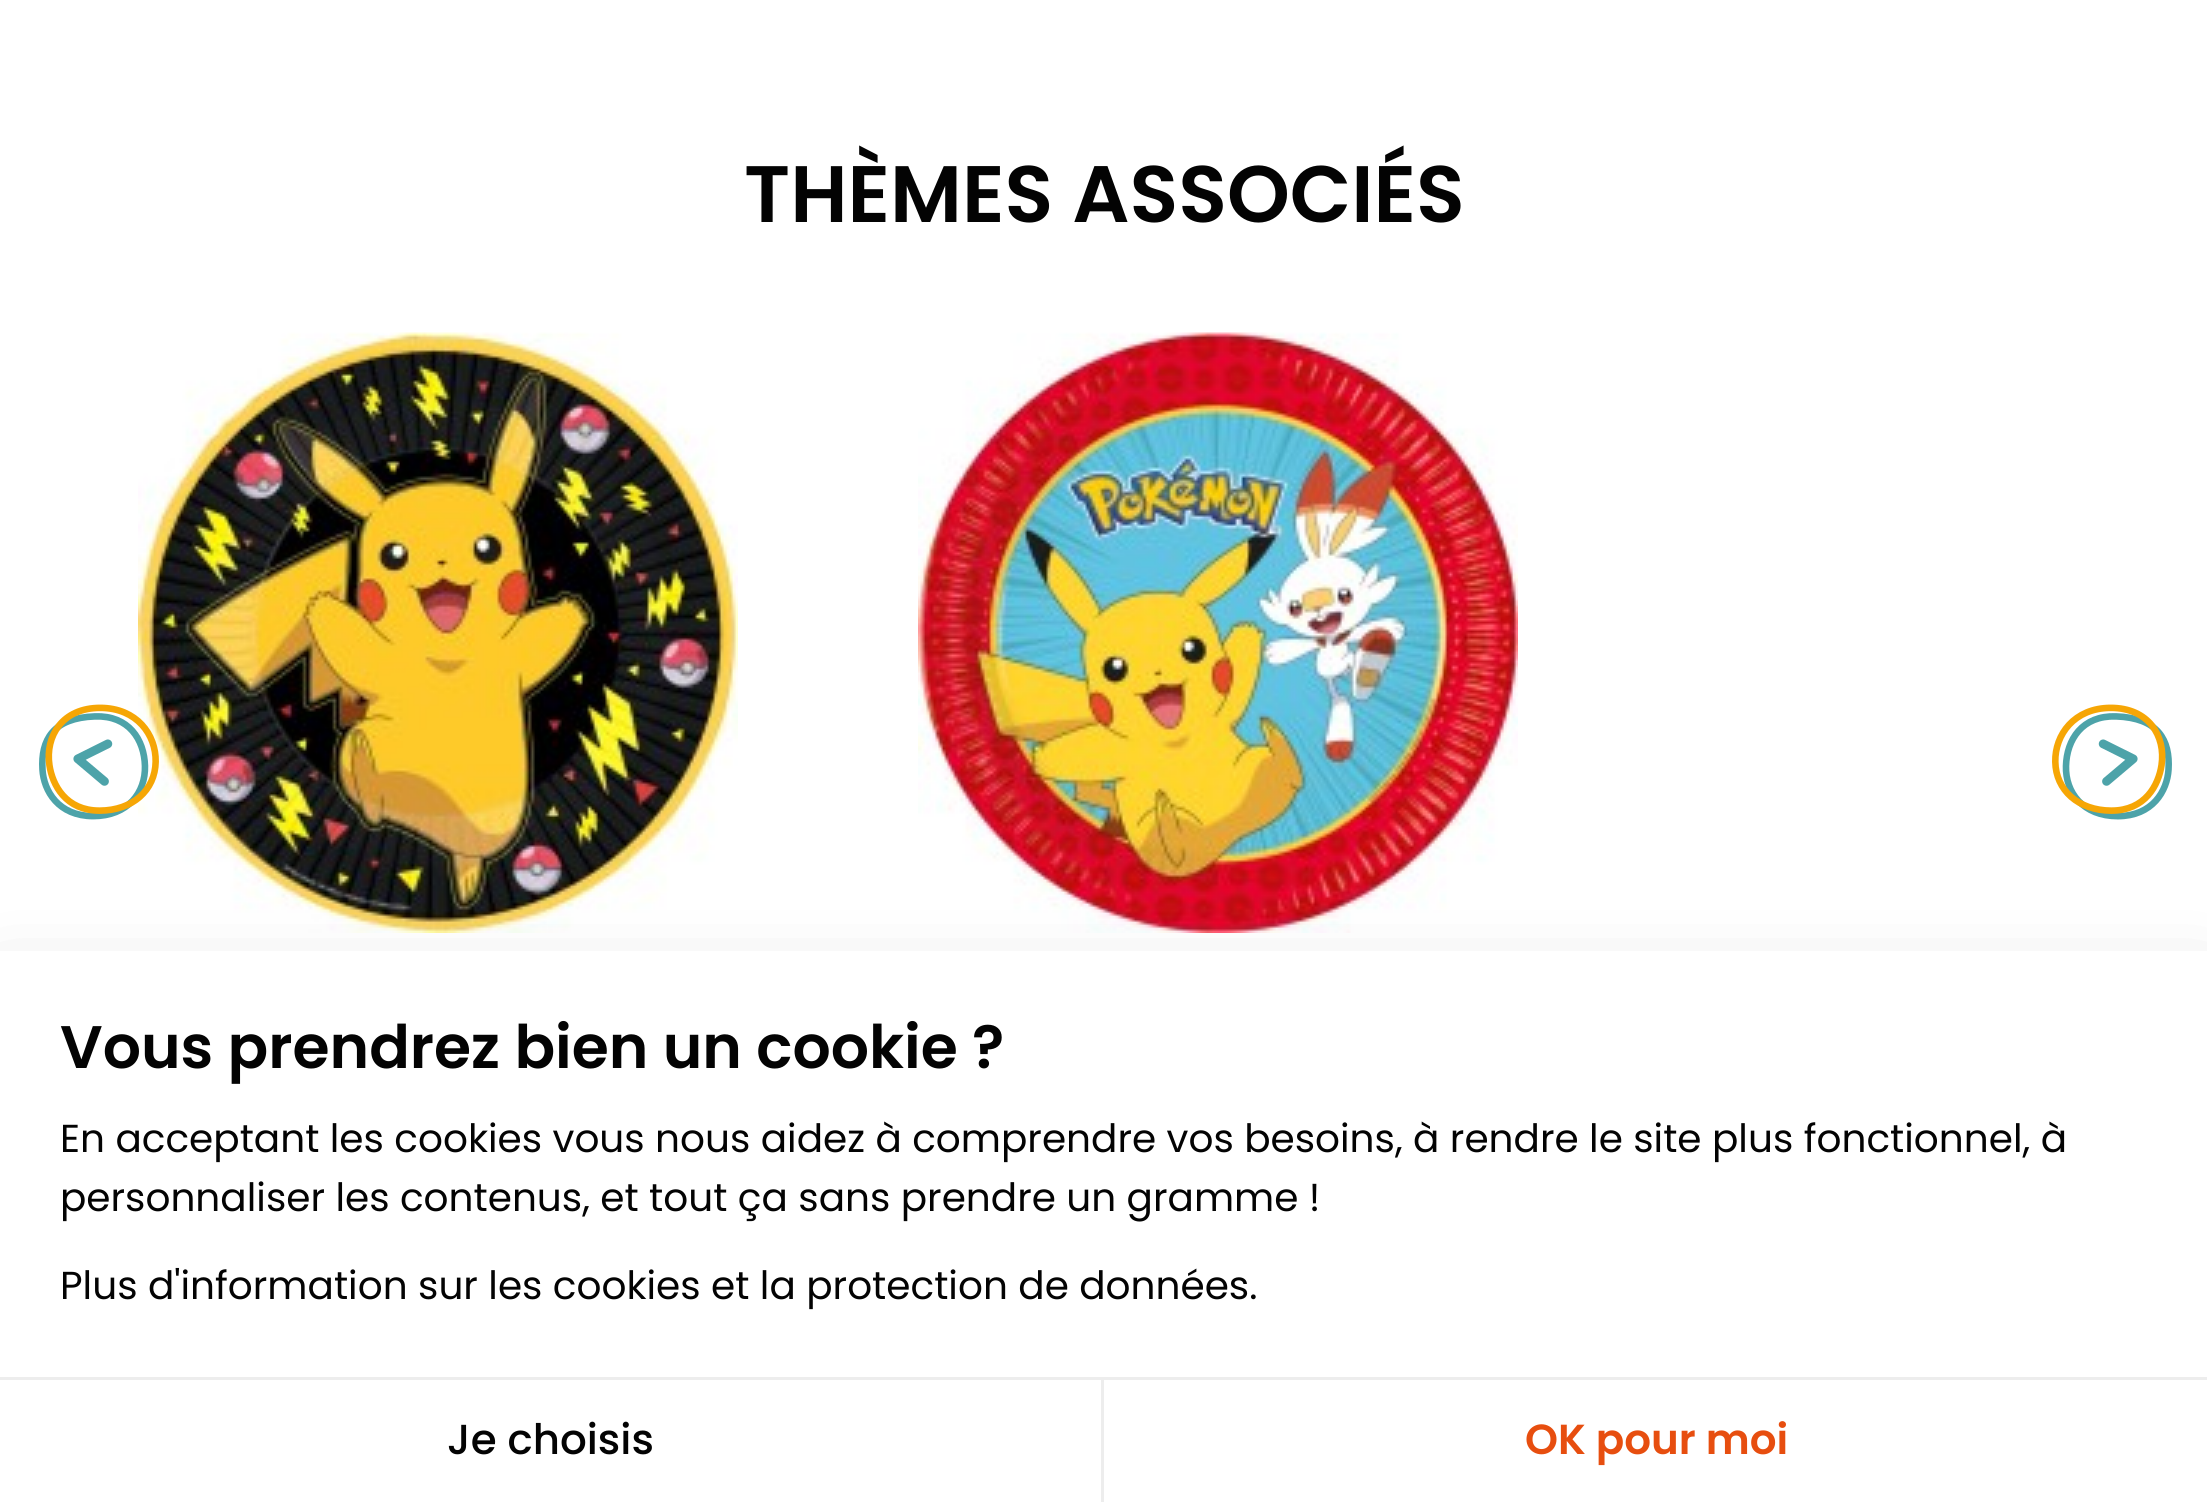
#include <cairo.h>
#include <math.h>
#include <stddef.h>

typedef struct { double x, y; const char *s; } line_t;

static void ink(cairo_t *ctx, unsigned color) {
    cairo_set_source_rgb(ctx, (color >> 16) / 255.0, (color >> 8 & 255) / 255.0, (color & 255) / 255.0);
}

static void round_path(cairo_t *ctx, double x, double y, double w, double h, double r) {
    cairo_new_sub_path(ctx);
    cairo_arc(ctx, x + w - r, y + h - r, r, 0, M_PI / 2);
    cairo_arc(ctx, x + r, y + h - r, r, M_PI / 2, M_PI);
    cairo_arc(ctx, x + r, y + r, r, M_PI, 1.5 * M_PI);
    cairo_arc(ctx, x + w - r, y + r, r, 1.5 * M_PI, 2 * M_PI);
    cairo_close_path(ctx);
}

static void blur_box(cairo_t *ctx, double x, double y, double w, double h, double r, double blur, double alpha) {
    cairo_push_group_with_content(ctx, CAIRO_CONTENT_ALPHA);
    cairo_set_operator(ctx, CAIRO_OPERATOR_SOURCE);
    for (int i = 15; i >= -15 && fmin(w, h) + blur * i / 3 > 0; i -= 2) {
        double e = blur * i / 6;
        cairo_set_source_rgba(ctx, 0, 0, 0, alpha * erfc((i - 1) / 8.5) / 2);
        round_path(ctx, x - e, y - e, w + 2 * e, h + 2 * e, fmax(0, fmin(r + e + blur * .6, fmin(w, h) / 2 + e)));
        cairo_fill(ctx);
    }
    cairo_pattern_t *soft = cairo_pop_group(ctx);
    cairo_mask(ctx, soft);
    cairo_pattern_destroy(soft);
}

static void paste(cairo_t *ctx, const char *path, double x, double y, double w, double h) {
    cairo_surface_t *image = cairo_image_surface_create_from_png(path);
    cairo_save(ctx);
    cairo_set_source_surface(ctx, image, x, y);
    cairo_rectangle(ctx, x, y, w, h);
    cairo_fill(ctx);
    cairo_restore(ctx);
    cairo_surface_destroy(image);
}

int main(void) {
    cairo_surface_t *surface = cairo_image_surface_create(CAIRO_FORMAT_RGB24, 2207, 1502);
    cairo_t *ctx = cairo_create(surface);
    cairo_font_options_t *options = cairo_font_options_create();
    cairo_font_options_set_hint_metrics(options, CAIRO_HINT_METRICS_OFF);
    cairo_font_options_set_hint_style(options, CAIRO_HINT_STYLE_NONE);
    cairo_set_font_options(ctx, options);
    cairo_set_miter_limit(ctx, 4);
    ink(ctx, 0xFFFFFF);
    cairo_paint(ctx);
    cairo_select_font_face(ctx, "Poppins SemiBold", CAIRO_FONT_SLANT_NORMAL, CAIRO_FONT_WEIGHT_NORMAL);
    cairo_set_font_size(ctx, 80);
    ink(ctx, 0x030303);
    cairo_move_to(ctx, 744, 222);
    cairo_show_text(ctx, "THÈMES ASSOCIÉS");
    paste(ctx, "media/2.png", 138, 332, 600, 601);
    paste(ctx, "media/1.png", 39, 704, 120, 116);
    paste(ctx, "media/3.png", 918, 332, 600, 601);
    paste(ctx, "media/4.png", 2052, 704, 120, 116);
    ink(ctx, 0x000000);
    blur_box(ctx, 0, 987, 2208, 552, 0, 42, 0.16);
    ink(ctx, 0xFFFFFF);
    cairo_rectangle(ctx, 0, 951, 2207, 551);
    cairo_fill(ctx);
    cairo_set_font_size(ctx, 60);
    ink(ctx, 0x030303);
    cairo_move_to(ctx, 60, 1068);
    cairo_show_text(ctx, "Vous prendrez bien un cookie ?");
    cairo_select_font_face(ctx, "Poppins", CAIRO_FONT_SLANT_NORMAL, CAIRO_FONT_WEIGHT_NORMAL);
    cairo_set_font_size(ctx, 39);
    {
        static const line_t items[] = {
            {60, 1152, "En acceptant les cookies vous nous aidez à comprendre vos besoins, à rendre le site plus fonctionnel, à"},
            {60, 1211, "personnaliser les contenus, et tout ça sans prendre un gramme !"},
            {60, 1299, "Plus d'information sur les cookies et la protection de données."},
        };
        for (size_t i = 0; i < sizeof items / sizeof *items; i++) {
            cairo_move_to(ctx, items[i].x, items[i].y);
            cairo_show_text(ctx, items[i].s);
        }
    }
    ink(ctx, 0xEDEDED);
    cairo_rectangle(ctx, 0, 1377, 2207, 3);
    cairo_fill(ctx);
    cairo_rectangle(ctx, 1101, 1380, 3, 122);
    cairo_fill(ctx);
    cairo_select_font_face(ctx, "Poppins Medium", CAIRO_FONT_SLANT_NORMAL, CAIRO_FONT_WEIGHT_NORMAL);
    cairo_set_font_size(ctx, 42);
    ink(ctx, 0x030303);
    cairo_move_to(ctx, 447, 1454);
    cairo_show_text(ctx, "Je choisis");
    cairo_select_font_face(ctx, "Poppins SemiBold", CAIRO_FONT_SLANT_NORMAL, CAIRO_FONT_WEIGHT_NORMAL);
    ink(ctx, 0xE74E0F);
    cairo_move_to(ctx, 1525, 1454);
    cairo_show_text(ctx, "OK pour moi");
    cairo_surface_write_to_png(surface, "image.png");
    cairo_font_options_destroy(options);
    cairo_destroy(ctx);
    cairo_surface_destroy(surface);
    return 0;
}
